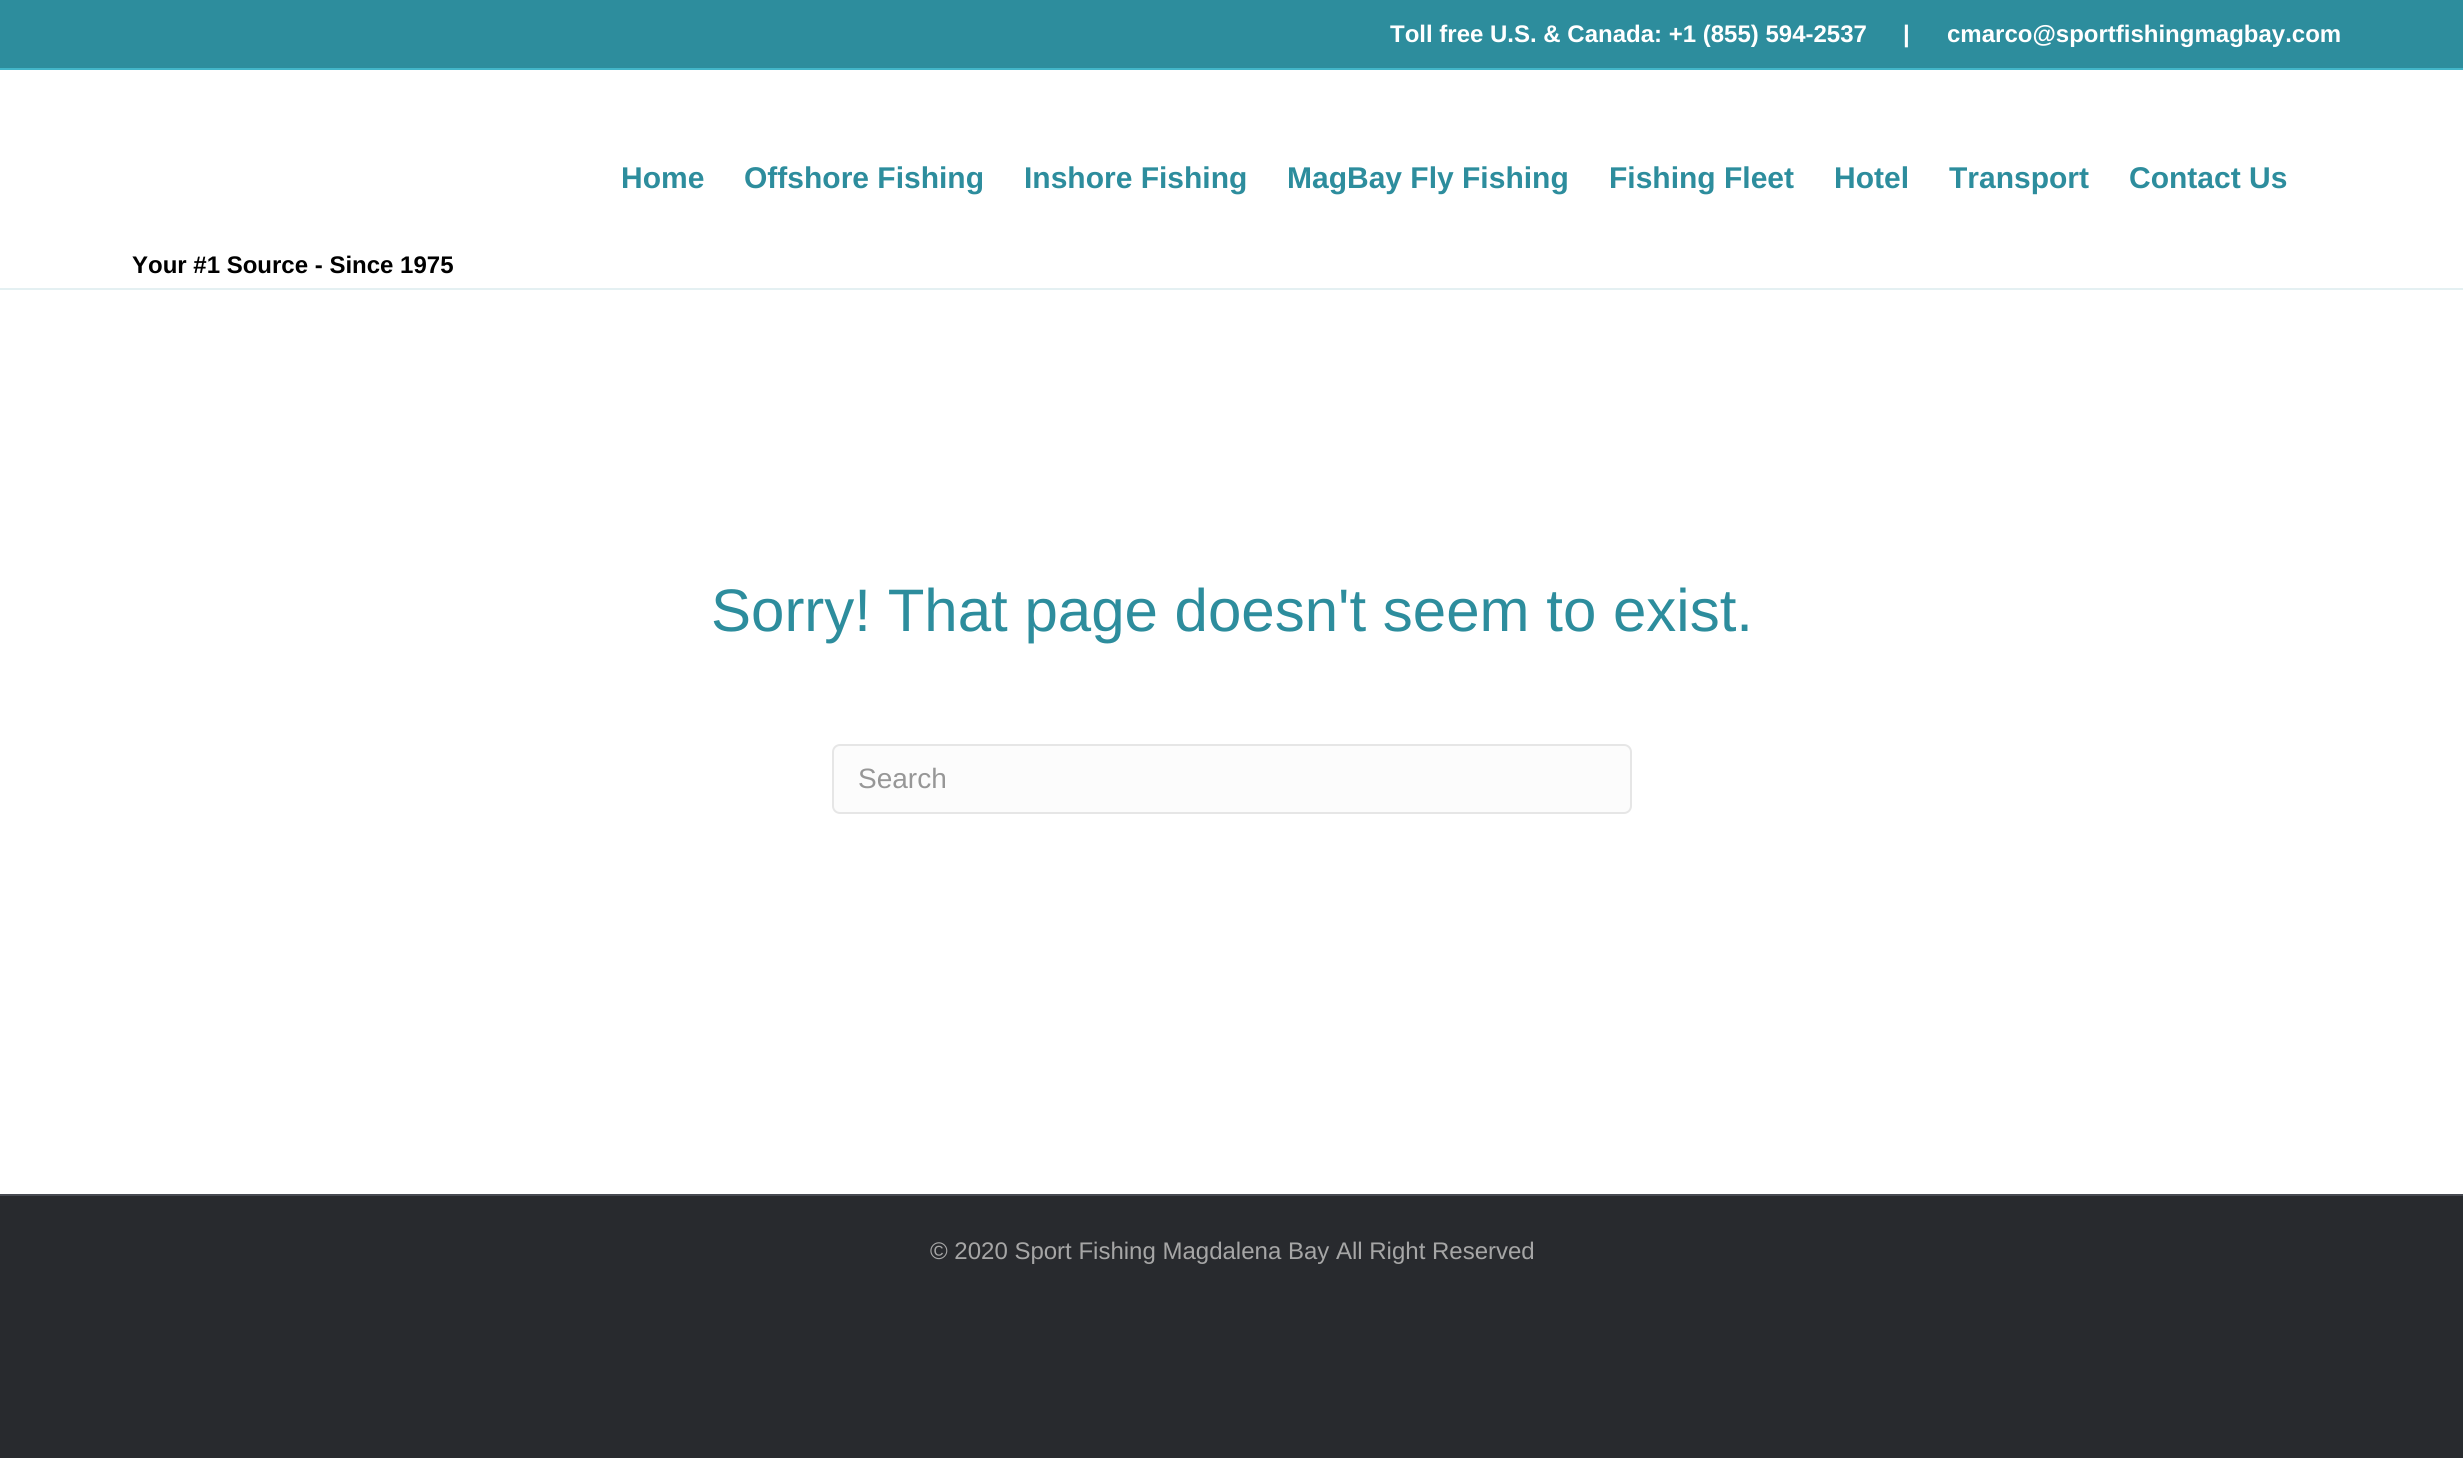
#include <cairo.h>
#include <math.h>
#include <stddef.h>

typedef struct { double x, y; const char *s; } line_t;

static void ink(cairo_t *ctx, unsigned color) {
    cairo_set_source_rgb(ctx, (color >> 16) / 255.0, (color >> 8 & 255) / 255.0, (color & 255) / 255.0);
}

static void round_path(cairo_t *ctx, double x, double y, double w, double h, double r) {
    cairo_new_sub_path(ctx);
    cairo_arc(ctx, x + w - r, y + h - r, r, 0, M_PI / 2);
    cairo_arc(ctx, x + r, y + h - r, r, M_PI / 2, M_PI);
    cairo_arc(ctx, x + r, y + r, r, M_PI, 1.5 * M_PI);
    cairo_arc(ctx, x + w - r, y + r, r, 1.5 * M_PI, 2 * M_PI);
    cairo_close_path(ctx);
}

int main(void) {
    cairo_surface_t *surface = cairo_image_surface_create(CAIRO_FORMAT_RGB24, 2463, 1458);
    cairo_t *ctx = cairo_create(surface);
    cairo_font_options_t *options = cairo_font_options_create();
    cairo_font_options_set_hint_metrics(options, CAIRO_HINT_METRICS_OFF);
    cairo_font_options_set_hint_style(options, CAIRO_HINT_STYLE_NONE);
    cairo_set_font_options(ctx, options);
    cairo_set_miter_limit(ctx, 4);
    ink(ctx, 0x282A2E);
    cairo_paint(ctx);
    ink(ctx, 0x2D8D9D);
    cairo_rectangle(ctx, 0, 0, 2463, 68);
    cairo_fill(ctx);
    ink(ctx, 0x43B6C9);
    cairo_rectangle(ctx, 0, 68, 2463, 2);
    cairo_fill(ctx);
    cairo_select_font_face(ctx, "Liberation Sans", CAIRO_FONT_SLANT_NORMAL, CAIRO_FONT_WEIGHT_BOLD);
    cairo_set_font_size(ctx, 24);
    ink(ctx, 0xFFFFFF);
    {
        static const line_t items[] = {
            {1390, 42, "Toll free U.S. & Canada: +1 (855) 594-2537"},
            {1903, 42, "|"},
            {1947, 42, "cmarco@sportfishingmagbay.com"},
        };
        for (size_t i = 0; i < sizeof items / sizeof *items; i++) {
            cairo_move_to(ctx, items[i].x, items[i].y);
            cairo_show_text(ctx, items[i].s);
        }
    }
    cairo_rectangle(ctx, 0, 70, 2463, 218);
    cairo_fill(ctx);
    ink(ctx, 0xE4F0F2);
    cairo_rectangle(ctx, 0, 288, 2463, 2);
    cairo_fill(ctx);
    cairo_set_font_size(ctx, 30);
    ink(ctx, 0x2D8D9D);
    {
        static const line_t items[] = {
            {621, 188, "Home"},
            {744, 188, "Offshore Fishing"},
            {1024, 188, "Inshore Fishing"},
            {1287, 188, "MagBay Fly Fishing"},
            {1609, 188, "Fishing Fleet"},
            {1834, 188, "Hotel"},
            {1949, 188, "Transport"},
            {2129, 188, "Contact Us"},
        };
        for (size_t i = 0; i < sizeof items / sizeof *items; i++) {
            cairo_move_to(ctx, items[i].x, items[i].y);
            cairo_show_text(ctx, items[i].s);
        }
    }
    cairo_set_font_size(ctx, 24);
    ink(ctx, 0x000000);
    cairo_move_to(ctx, 132, 273);
    cairo_show_text(ctx, "Your #1 Source - Since 1975");
    ink(ctx, 0xFFFFFF);
    cairo_rectangle(ctx, 0, 290, 2463, 904);
    cairo_fill(ctx);
    cairo_select_font_face(ctx, "Liberation Sans", CAIRO_FONT_SLANT_NORMAL, CAIRO_FONT_WEIGHT_NORMAL);
    cairo_set_font_size(ctx, 60);
    ink(ctx, 0x2D8D9D);
    cairo_move_to(ctx, 711, 631);
    cairo_show_text(ctx, "Sorry! That page doesn't seem to exist.");
    ink(ctx, 0xFCFCFC);
    round_path(ctx, 833, 745, 798, 68, 7);
    cairo_fill_preserve(ctx);
    ink(ctx, 0xE6E6E6);
    cairo_stroke(ctx);
    cairo_set_font_size(ctx, 28);
    ink(ctx, 0x979797);
    cairo_move_to(ctx, 858, 788);
    cairo_show_text(ctx, "Search");
    ink(ctx, 0x474A51);
    cairo_rectangle(ctx, 0, 1194, 2463, 2);
    cairo_fill(ctx);
    cairo_set_font_size(ctx, 24);
    ink(ctx, 0xA6A6A6);
    cairo_move_to(ctx, 930, 1259);
    cairo_show_text(ctx, "© 2020 Sport Fishing Magdalena Bay All Right Reserved");
    cairo_surface_write_to_png(surface, "image.png");
    cairo_font_options_destroy(options);
    cairo_destroy(ctx);
    cairo_surface_destroy(surface);
    return 0;
}
